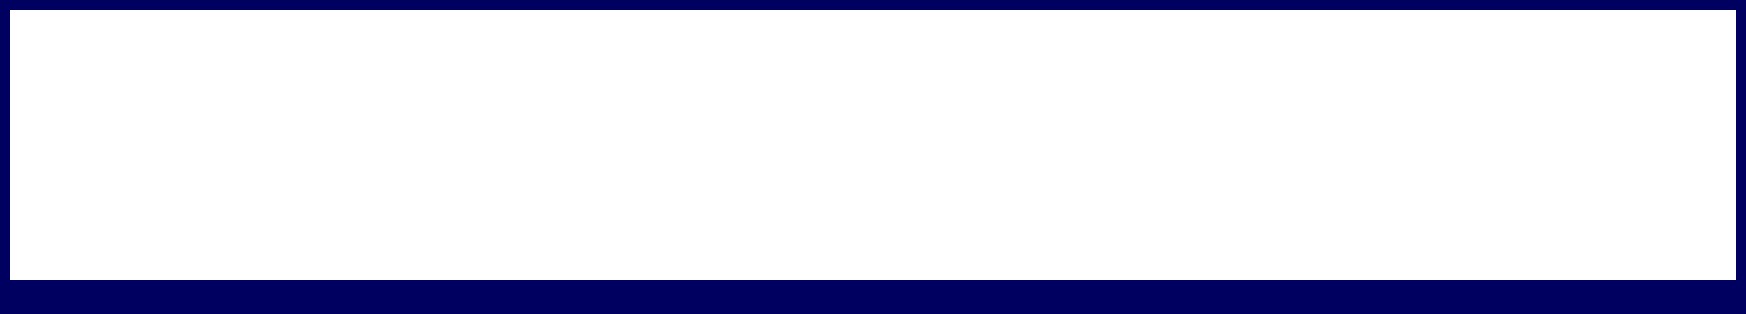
#include <cairo.h>
#include <math.h>
#include <stddef.h>


static void ink(cairo_t *ctx, unsigned color) {
    cairo_set_source_rgb(ctx, (color >> 16) / 255.0, (color >> 8 & 255) / 255.0, (color & 255) / 255.0);
}

int main(void) {
    cairo_surface_t *surface = cairo_image_surface_create(CAIRO_FORMAT_RGB24, 1746, 314);
    cairo_t *ctx = cairo_create(surface);
    cairo_font_options_t *options = cairo_font_options_create();
    cairo_font_options_set_hint_metrics(options, CAIRO_HINT_METRICS_OFF);
    cairo_font_options_set_hint_style(options, CAIRO_HINT_STYLE_NONE);
    cairo_set_font_options(ctx, options);
    cairo_set_miter_limit(ctx, 4);
    ink(ctx, 0x000060);
    cairo_paint(ctx);
    ink(ctx, 0xFFFFFF);
    cairo_rectangle(ctx, 10, 10, 1726, 270);
    cairo_fill(ctx);
    cairo_surface_write_to_png(surface, "image.png");
    cairo_font_options_destroy(options);
    cairo_destroy(ctx);
    cairo_surface_destroy(surface);
    return 0;
}
